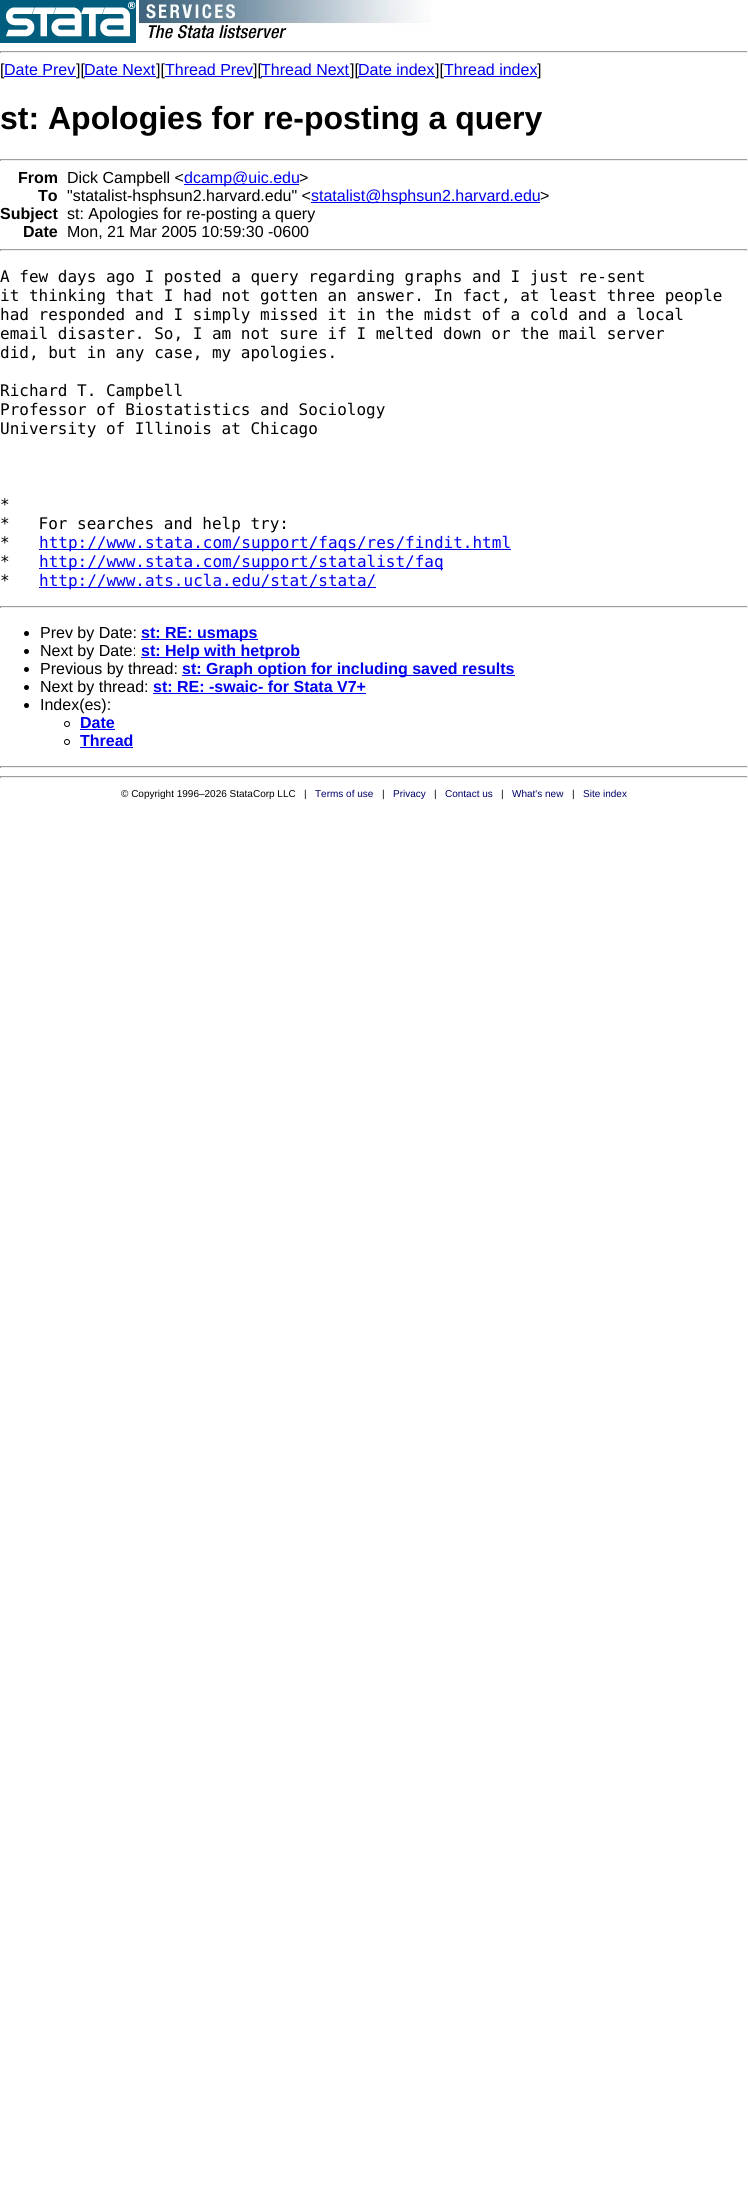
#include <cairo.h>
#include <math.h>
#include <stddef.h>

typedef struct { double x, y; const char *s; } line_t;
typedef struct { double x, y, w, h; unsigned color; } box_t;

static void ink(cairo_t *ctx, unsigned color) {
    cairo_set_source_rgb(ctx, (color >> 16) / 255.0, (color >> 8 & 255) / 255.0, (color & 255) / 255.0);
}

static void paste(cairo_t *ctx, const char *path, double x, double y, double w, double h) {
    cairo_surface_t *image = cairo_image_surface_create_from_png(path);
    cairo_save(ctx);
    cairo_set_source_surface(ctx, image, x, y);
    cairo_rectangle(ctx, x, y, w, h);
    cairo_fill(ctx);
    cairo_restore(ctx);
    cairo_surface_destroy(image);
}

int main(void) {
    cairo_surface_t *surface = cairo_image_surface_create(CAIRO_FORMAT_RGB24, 748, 2194);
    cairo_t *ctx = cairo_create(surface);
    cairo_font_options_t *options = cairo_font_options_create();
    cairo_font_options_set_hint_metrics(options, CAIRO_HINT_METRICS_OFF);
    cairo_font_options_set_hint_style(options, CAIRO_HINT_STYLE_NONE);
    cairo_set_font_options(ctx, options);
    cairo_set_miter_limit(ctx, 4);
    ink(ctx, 0xFFFFFF);
    cairo_paint(ctx);
    paste(ctx, "media/1.png", 0, 0, 136, 43);
    paste(ctx, "media/2.png", 139, 0, 292, 40);
    {
        static const box_t items[] = {
            {0, 51, 748, 1, 0x9F9F9F},
            {747, 51, 1, 2, 0xEEEEEE},
            {0, 52, 748, 1, 0xEEEEEE},
            {0, 51, 1, 2, 0x9F9F9F},
        };
        for (size_t i = 0; i < sizeof items / sizeof *items; i++) {
            ink(ctx, items[i].color);
            cairo_rectangle(ctx, items[i].x, items[i].y, items[i].w, items[i].h);
            cairo_fill(ctx);
        }
    }
    cairo_select_font_face(ctx, "Liberation Sans", CAIRO_FONT_SLANT_NORMAL, CAIRO_FONT_WEIGHT_NORMAL);
    cairo_set_font_size(ctx, 16);
    ink(ctx, 0x000000);
    cairo_move_to(ctx, 0, 75);
    cairo_show_text(ctx, "[");
    ink(ctx, 0x0000EE);
    cairo_move_to(ctx, 4, 75);
    cairo_show_text(ctx, "Date Prev");
    cairo_rectangle(ctx, 4, 76, 72, 1);
    cairo_fill(ctx);
    ink(ctx, 0x000000);
    cairo_move_to(ctx, 76, 75);
    cairo_show_text(ctx, "][");
    ink(ctx, 0x0000EE);
    cairo_move_to(ctx, 84, 75);
    cairo_show_text(ctx, "Date Next");
    cairo_rectangle(ctx, 84, 76, 72, 1);
    cairo_fill(ctx);
    ink(ctx, 0x000000);
    cairo_move_to(ctx, 156, 75);
    cairo_show_text(ctx, "][");
    ink(ctx, 0x0000EE);
    cairo_move_to(ctx, 165, 75);
    cairo_show_text(ctx, "Thread Prev");
    cairo_rectangle(ctx, 165, 76, 88, 1);
    cairo_fill(ctx);
    ink(ctx, 0x000000);
    cairo_move_to(ctx, 253, 75);
    cairo_show_text(ctx, "][");
    ink(ctx, 0x0000EE);
    cairo_move_to(ctx, 261, 75);
    cairo_show_text(ctx, "Thread Next");
    cairo_rectangle(ctx, 261, 76, 89, 1);
    cairo_fill(ctx);
    ink(ctx, 0x000000);
    cairo_move_to(ctx, 350, 75);
    cairo_show_text(ctx, "][");
    ink(ctx, 0x0000EE);
    cairo_move_to(ctx, 358, 75);
    cairo_show_text(ctx, "Date index");
    cairo_rectangle(ctx, 358, 76, 77, 1);
    cairo_fill(ctx);
    ink(ctx, 0x000000);
    cairo_move_to(ctx, 435, 75);
    cairo_show_text(ctx, "][");
    ink(ctx, 0x0000EE);
    cairo_move_to(ctx, 444, 75);
    cairo_show_text(ctx, "Thread index");
    cairo_rectangle(ctx, 444, 76, 93, 1);
    cairo_fill(ctx);
    ink(ctx, 0x000000);
    cairo_move_to(ctx, 537, 75);
    cairo_show_text(ctx, "]");
    cairo_select_font_face(ctx, "Liberation Sans", CAIRO_FONT_SLANT_NORMAL, CAIRO_FONT_WEIGHT_BOLD);
    cairo_set_font_size(ctx, 32);
    cairo_move_to(ctx, 0, 129);
    cairo_show_text(ctx, "st: Apologies for re-posting a query");
    {
        static const box_t items[] = {
            {0, 159, 748, 1, 0x9F9F9F},
            {747, 159, 1, 2, 0xEEEEEE},
            {0, 160, 748, 1, 0xEEEEEE},
            {0, 159, 1, 2, 0x9F9F9F},
        };
        for (size_t i = 0; i < sizeof items / sizeof *items; i++) {
            ink(ctx, items[i].color);
            cairo_rectangle(ctx, items[i].x, items[i].y, items[i].w, items[i].h);
            cairo_fill(ctx);
        }
    }
    cairo_set_font_size(ctx, 16);
    ink(ctx, 0x000000);
    cairo_move_to(ctx, 18, 183);
    cairo_show_text(ctx, "From");
    cairo_select_font_face(ctx, "Liberation Sans", CAIRO_FONT_SLANT_NORMAL, CAIRO_FONT_WEIGHT_NORMAL);
    cairo_move_to(ctx, 67, 183);
    cairo_show_text(ctx, "Dick Campbell <");
    ink(ctx, 0x0000EE);
    cairo_rectangle(ctx, 184, 184, 115, 1);
    cairo_fill(ctx);
    cairo_move_to(ctx, 184, 183);
    cairo_show_text(ctx, "dcamp@uic.edu");
    ink(ctx, 0x000000);
    cairo_move_to(ctx, 299, 183);
    cairo_show_text(ctx, ">");
    cairo_select_font_face(ctx, "Liberation Sans", CAIRO_FONT_SLANT_NORMAL, CAIRO_FONT_WEIGHT_BOLD);
    cairo_move_to(ctx, 38, 201);
    cairo_show_text(ctx, "To");
    cairo_select_font_face(ctx, "Liberation Sans", CAIRO_FONT_SLANT_NORMAL, CAIRO_FONT_WEIGHT_NORMAL);
    cairo_move_to(ctx, 67, 201);
    cairo_show_text(ctx, "\"statalist-hsphsun2.harvard.edu\" <");
    ink(ctx, 0x0000EE);
    cairo_rectangle(ctx, 311, 202, 229, 1);
    cairo_fill(ctx);
    cairo_move_to(ctx, 311, 201);
    cairo_show_text(ctx, "statalist@hsphsun2.harvard.edu");
    ink(ctx, 0x000000);
    cairo_move_to(ctx, 540, 201);
    cairo_show_text(ctx, ">");
    cairo_select_font_face(ctx, "Liberation Sans", CAIRO_FONT_SLANT_NORMAL, CAIRO_FONT_WEIGHT_BOLD);
    cairo_move_to(ctx, 0, 219);
    cairo_show_text(ctx, "Subject");
    cairo_select_font_face(ctx, "Liberation Sans", CAIRO_FONT_SLANT_NORMAL, CAIRO_FONT_WEIGHT_NORMAL);
    cairo_move_to(ctx, 67, 219);
    cairo_show_text(ctx, "st: Apologies for re-posting a query");
    cairo_select_font_face(ctx, "Liberation Sans", CAIRO_FONT_SLANT_NORMAL, CAIRO_FONT_WEIGHT_BOLD);
    cairo_move_to(ctx, 23, 237);
    cairo_show_text(ctx, "Date");
    cairo_select_font_face(ctx, "Liberation Sans", CAIRO_FONT_SLANT_NORMAL, CAIRO_FONT_WEIGHT_NORMAL);
    cairo_move_to(ctx, 67, 237);
    cairo_show_text(ctx, "Mon, 21 Mar 2005 10:59:30 -0600");
    {
        static const box_t items[] = {
            {0, 249, 748, 1, 0x9F9F9F},
            {747, 249, 1, 2, 0xEEEEEE},
            {0, 250, 748, 1, 0xEEEEEE},
            {0, 249, 1, 2, 0x9F9F9F},
        };
        for (size_t i = 0; i < sizeof items / sizeof *items; i++) {
            ink(ctx, items[i].color);
            cairo_rectangle(ctx, items[i].x, items[i].y, items[i].w, items[i].h);
            cairo_fill(ctx);
        }
    }
    cairo_select_font_face(ctx, "DejaVu Sans Mono", CAIRO_FONT_SLANT_NORMAL, CAIRO_FONT_WEIGHT_NORMAL);
    ink(ctx, 0x000000);
    {
        static const line_t items[] = {
            {0, 282, "A few days ago I posted a query regarding graphs and I just re-sent"},
            {0, 301, "it thinking that I had not gotten an answer. In fact, at least three people"},
            {0, 320, "had responded and I simply missed it in the midst of a cold and a local"},
            {0, 339, "email disaster. So, I am not sure if I melted down or the mail server"},
            {0, 358, "did, but in any case, my apologies."},
            {0, 396, "Richard T. Campbell"},
            {0, 415, "Professor of Biostatistics and Sociology"},
            {0, 434, "University of Illinois at Chicago"},
            {0, 510, "*"},
            {0, 529, "*   For searches and help try:"},
            {0, 548, "*"},
        };
        for (size_t i = 0; i < sizeof items / sizeof *items; i++) {
            cairo_move_to(ctx, items[i].x, items[i].y);
            cairo_show_text(ctx, items[i].s);
        }
    }
    ink(ctx, 0x0000EE);
    cairo_rectangle(ctx, 39, 549, 472, 1);
    cairo_fill(ctx);
    cairo_move_to(ctx, 39, 548);
    cairo_show_text(ctx, "http://www.stata.com/support/faqs/res/findit.html");
    ink(ctx, 0x000000);
    cairo_move_to(ctx, 0, 567);
    cairo_show_text(ctx, "*");
    ink(ctx, 0x0000EE);
    cairo_rectangle(ctx, 39, 568, 404, 1);
    cairo_fill(ctx);
    cairo_move_to(ctx, 39, 567);
    cairo_show_text(ctx, "http://www.stata.com/support/statalist/faq");
    ink(ctx, 0x000000);
    cairo_move_to(ctx, 0, 586);
    cairo_show_text(ctx, "*");
    ink(ctx, 0x0000EE);
    cairo_rectangle(ctx, 39, 587, 337, 1);
    cairo_fill(ctx);
    cairo_move_to(ctx, 39, 586);
    cairo_show_text(ctx, "http://www.ats.ucla.edu/stat/stata/");
    {
        static const box_t items[] = {
            {0, 606, 748, 1, 0x9F9F9F},
            {747, 606, 1, 2, 0xEEEEEE},
            {0, 607, 748, 1, 0xEEEEEE},
            {0, 606, 1, 2, 0x9F9F9F},
        };
        for (size_t i = 0; i < sizeof items / sizeof *items; i++) {
            ink(ctx, items[i].color);
            cairo_rectangle(ctx, items[i].x, items[i].y, items[i].w, items[i].h);
            cairo_fill(ctx);
        }
    }
    ink(ctx, 0x000000);
    cairo_new_path(ctx);
    cairo_arc(ctx, 26.5, 633.5, 2.5, 0, 2 * M_PI);
    cairo_fill(ctx);
    cairo_select_font_face(ctx, "Liberation Sans", CAIRO_FONT_SLANT_NORMAL, CAIRO_FONT_WEIGHT_NORMAL);
    cairo_move_to(ctx, 40, 638);
    cairo_show_text(ctx, "Prev by Date:");
    ink(ctx, 0x0000EE);
    cairo_rectangle(ctx, 141, 639, 117, 1);
    cairo_fill(ctx);
    cairo_select_font_face(ctx, "Liberation Sans", CAIRO_FONT_SLANT_NORMAL, CAIRO_FONT_WEIGHT_BOLD);
    cairo_move_to(ctx, 141, 638);
    cairo_show_text(ctx, "st: RE: usmaps");
    ink(ctx, 0x000000);
    cairo_new_path(ctx);
    cairo_arc(ctx, 26.5, 651.5, 2.5, 0, 2 * M_PI);
    cairo_fill(ctx);
    cairo_select_font_face(ctx, "Liberation Sans", CAIRO_FONT_SLANT_NORMAL, CAIRO_FONT_WEIGHT_NORMAL);
    cairo_move_to(ctx, 40, 656);
    cairo_show_text(ctx, "Next by Date:");
    ink(ctx, 0x0000EE);
    cairo_rectangle(ctx, 141, 657, 159, 1);
    cairo_fill(ctx);
    cairo_select_font_face(ctx, "Liberation Sans", CAIRO_FONT_SLANT_NORMAL, CAIRO_FONT_WEIGHT_BOLD);
    cairo_move_to(ctx, 141, 656);
    cairo_show_text(ctx, "st: Help with hetprob");
    ink(ctx, 0x000000);
    cairo_new_path(ctx);
    cairo_arc(ctx, 26.5, 669.5, 2.5, 0, 2 * M_PI);
    cairo_fill(ctx);
    cairo_select_font_face(ctx, "Liberation Sans", CAIRO_FONT_SLANT_NORMAL, CAIRO_FONT_WEIGHT_NORMAL);
    cairo_move_to(ctx, 40, 674);
    cairo_show_text(ctx, "Previous by thread:");
    ink(ctx, 0x0000EE);
    cairo_rectangle(ctx, 182, 675, 333, 1);
    cairo_fill(ctx);
    cairo_select_font_face(ctx, "Liberation Sans", CAIRO_FONT_SLANT_NORMAL, CAIRO_FONT_WEIGHT_BOLD);
    cairo_move_to(ctx, 182, 674);
    cairo_show_text(ctx, "st: Graph option for including saved results");
    ink(ctx, 0x000000);
    cairo_new_path(ctx);
    cairo_arc(ctx, 26.5, 687.5, 2.5, 0, 2 * M_PI);
    cairo_fill(ctx);
    cairo_select_font_face(ctx, "Liberation Sans", CAIRO_FONT_SLANT_NORMAL, CAIRO_FONT_WEIGHT_NORMAL);
    cairo_move_to(ctx, 40, 692);
    cairo_show_text(ctx, "Next by thread:");
    cairo_select_font_face(ctx, "Liberation Sans", CAIRO_FONT_SLANT_NORMAL, CAIRO_FONT_WEIGHT_BOLD);
    ink(ctx, 0x0000EE);
    cairo_move_to(ctx, 153, 692);
    cairo_show_text(ctx, "st: RE: -swaic- for Stata V7+");
    cairo_rectangle(ctx, 153, 693, 213, 1);
    cairo_fill(ctx);
    ink(ctx, 0x000000);
    cairo_arc(ctx, 26.5, 705.5, 2.5, 0, 2 * M_PI);
    cairo_fill(ctx);
    cairo_select_font_face(ctx, "Liberation Sans", CAIRO_FONT_SLANT_NORMAL, CAIRO_FONT_WEIGHT_NORMAL);
    cairo_move_to(ctx, 40, 710);
    cairo_show_text(ctx, "Index(es):");
    cairo_new_path(ctx);
    cairo_arc(ctx, 67, 724, 2.5, 0, 2 * M_PI);
    cairo_set_line_width(ctx, 1);
    cairo_stroke(ctx);
    cairo_select_font_face(ctx, "Liberation Sans", CAIRO_FONT_SLANT_NORMAL, CAIRO_FONT_WEIGHT_BOLD);
    ink(ctx, 0x0000EE);
    cairo_move_to(ctx, 80, 728);
    cairo_show_text(ctx, "Date");
    cairo_rectangle(ctx, 80, 729, 35, 1);
    cairo_fill(ctx);
    cairo_arc(ctx, 67, 742, 2.5, 0, 2 * M_PI);
    ink(ctx, 0x000000);
    cairo_stroke(ctx);
    ink(ctx, 0x0000EE);
    cairo_move_to(ctx, 80, 746);
    cairo_show_text(ctx, "Thread");
    {
        static const box_t items[] = {
            {80, 747, 53, 1, 0x0000EE},
            {0, 766, 748, 1, 0x9F9F9F},
            {747, 766, 1, 2, 0xEEEEEE},
            {0, 767, 748, 1, 0xEEEEEE},
            {0, 766, 1, 2, 0x9F9F9F},
            {0, 776, 748, 1, 0x9F9F9F},
            {747, 776, 1, 2, 0xEEEEEE},
            {0, 777, 748, 1, 0xEEEEEE},
            {0, 776, 1, 2, 0x9F9F9F},
        };
        for (size_t i = 0; i < sizeof items / sizeof *items; i++) {
            ink(ctx, items[i].color);
            cairo_rectangle(ctx, items[i].x, items[i].y, items[i].w, items[i].h);
            cairo_fill(ctx);
        }
    }
    cairo_select_font_face(ctx, "Liberation Sans", CAIRO_FONT_SLANT_NORMAL, CAIRO_FONT_WEIGHT_NORMAL);
    cairo_set_font_size(ctx, 10);
    ink(ctx, 0x000000);
    cairo_move_to(ctx, 121, 797);
    cairo_show_text(ctx, "© Copyright 1996–2026 StataCorp LLC");
    cairo_move_to(ctx, 304, 797);
    cairo_show_text(ctx, "|");
    ink(ctx, 0x000066);
    cairo_move_to(ctx, 315, 797);
    cairo_show_text(ctx, "Terms of use");
    ink(ctx, 0x000000);
    cairo_move_to(ctx, 382, 797);
    cairo_show_text(ctx, "|");
    ink(ctx, 0x000066);
    cairo_move_to(ctx, 393, 797);
    cairo_show_text(ctx, "Privacy");
    ink(ctx, 0x000000);
    cairo_move_to(ctx, 434, 797);
    cairo_show_text(ctx, "|");
    ink(ctx, 0x000066);
    cairo_move_to(ctx, 445, 797);
    cairo_show_text(ctx, "Contact us");
    ink(ctx, 0x000000);
    cairo_move_to(ctx, 501, 797);
    cairo_show_text(ctx, "|");
    ink(ctx, 0x000066);
    cairo_move_to(ctx, 512, 797);
    cairo_show_text(ctx, "What's new");
    ink(ctx, 0x000000);
    cairo_move_to(ctx, 572, 797);
    cairo_show_text(ctx, "|");
    ink(ctx, 0x000066);
    cairo_move_to(ctx, 583, 797);
    cairo_show_text(ctx, "Site index");
    cairo_surface_write_to_png(surface, "image.png");
    cairo_font_options_destroy(options);
    cairo_destroy(ctx);
    cairo_surface_destroy(surface);
    return 0;
}
